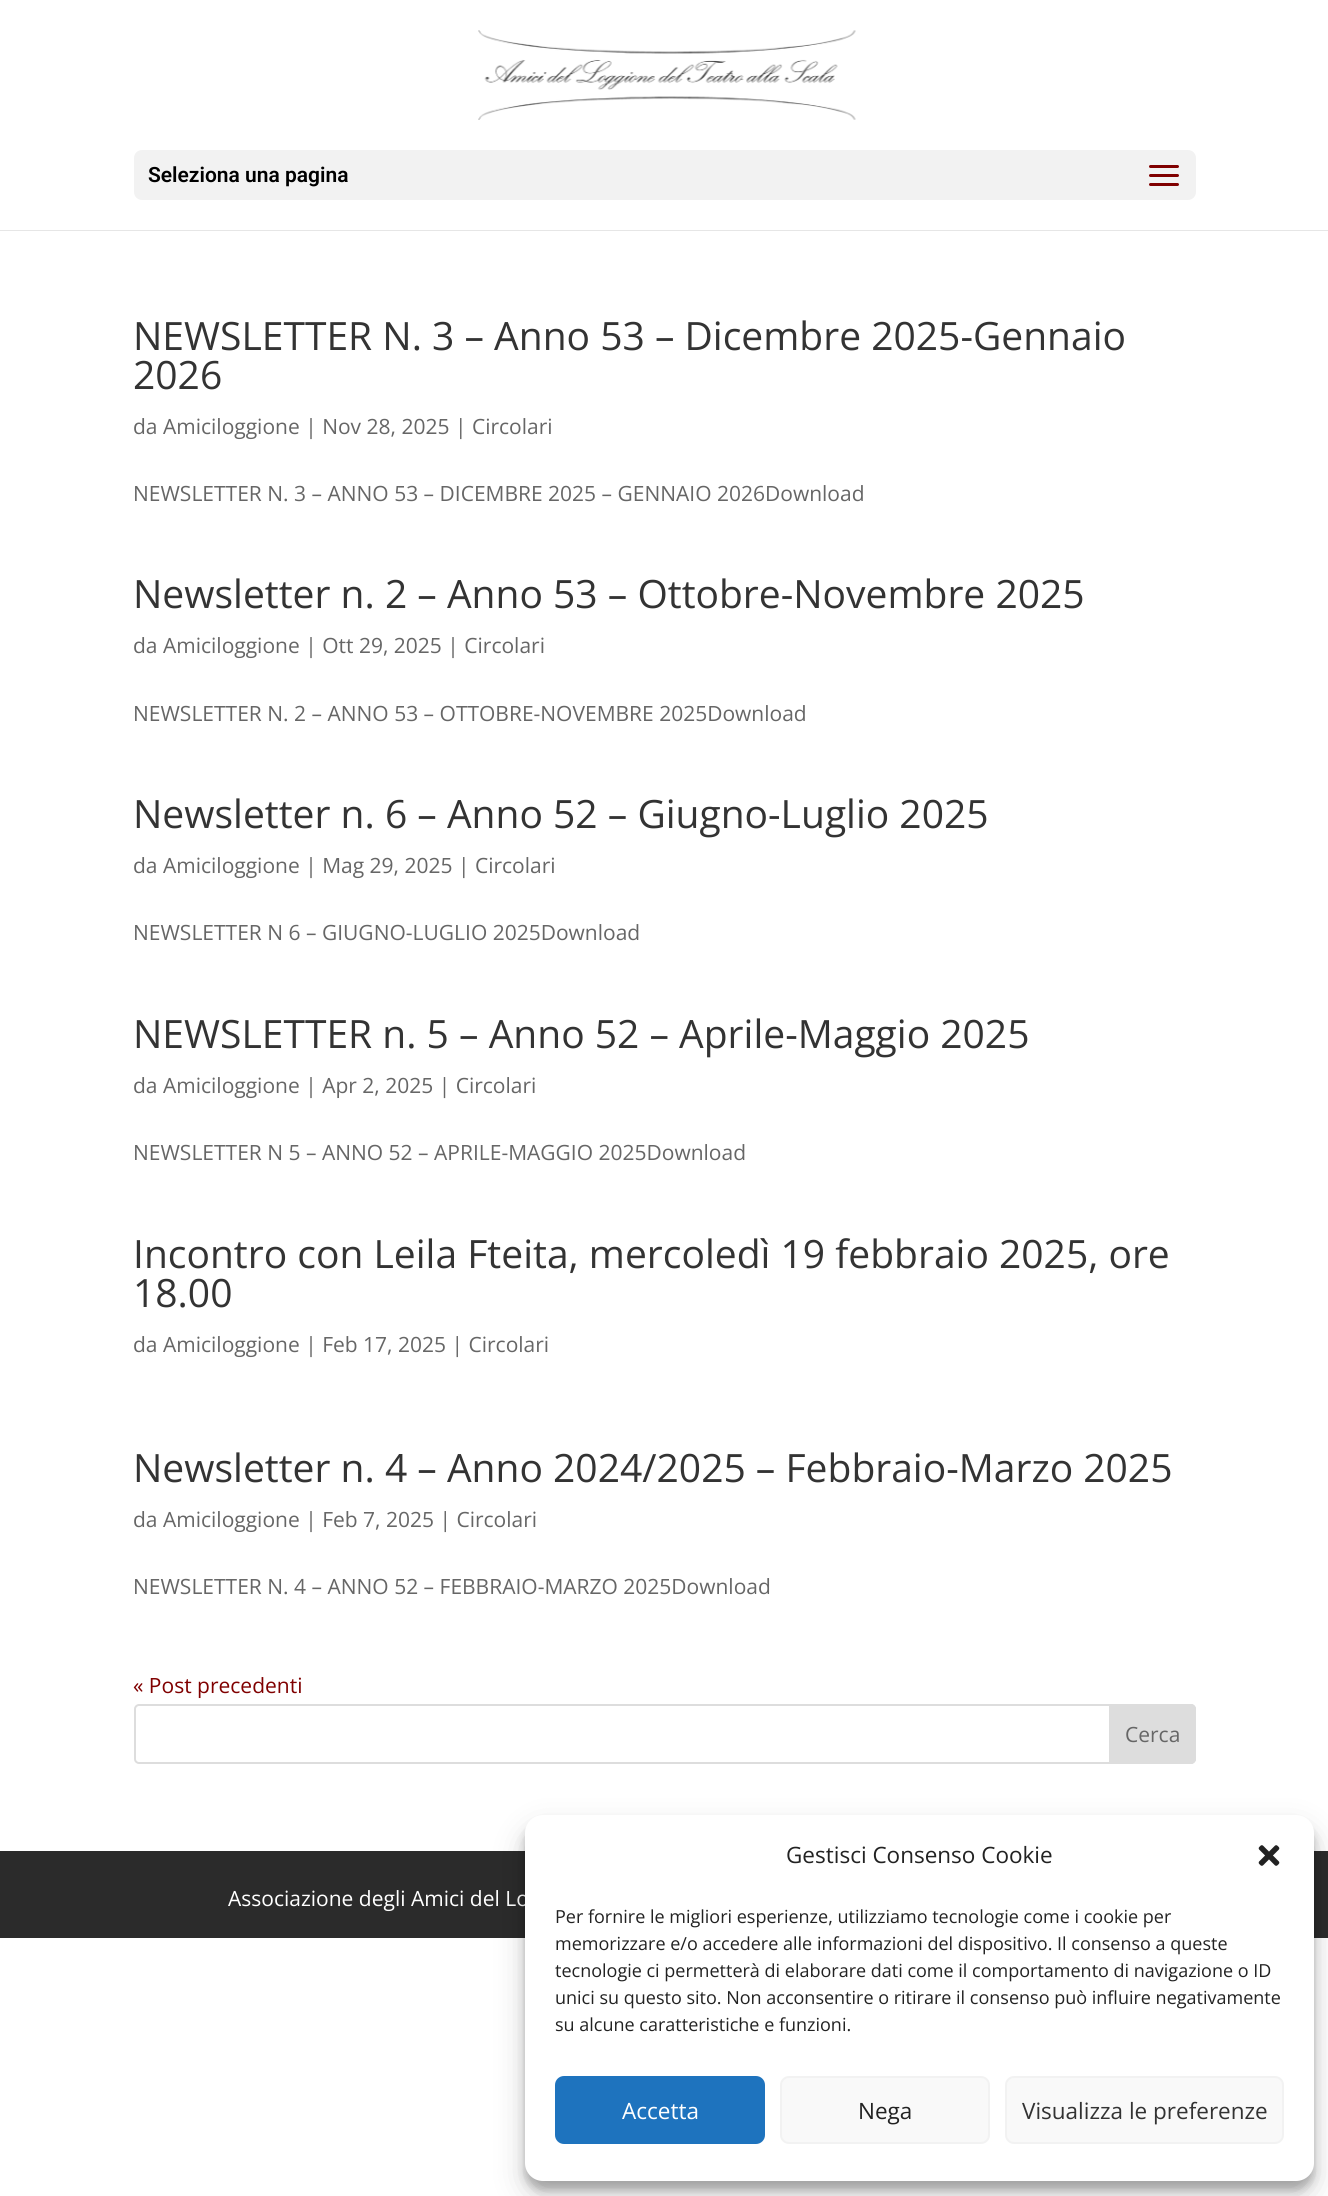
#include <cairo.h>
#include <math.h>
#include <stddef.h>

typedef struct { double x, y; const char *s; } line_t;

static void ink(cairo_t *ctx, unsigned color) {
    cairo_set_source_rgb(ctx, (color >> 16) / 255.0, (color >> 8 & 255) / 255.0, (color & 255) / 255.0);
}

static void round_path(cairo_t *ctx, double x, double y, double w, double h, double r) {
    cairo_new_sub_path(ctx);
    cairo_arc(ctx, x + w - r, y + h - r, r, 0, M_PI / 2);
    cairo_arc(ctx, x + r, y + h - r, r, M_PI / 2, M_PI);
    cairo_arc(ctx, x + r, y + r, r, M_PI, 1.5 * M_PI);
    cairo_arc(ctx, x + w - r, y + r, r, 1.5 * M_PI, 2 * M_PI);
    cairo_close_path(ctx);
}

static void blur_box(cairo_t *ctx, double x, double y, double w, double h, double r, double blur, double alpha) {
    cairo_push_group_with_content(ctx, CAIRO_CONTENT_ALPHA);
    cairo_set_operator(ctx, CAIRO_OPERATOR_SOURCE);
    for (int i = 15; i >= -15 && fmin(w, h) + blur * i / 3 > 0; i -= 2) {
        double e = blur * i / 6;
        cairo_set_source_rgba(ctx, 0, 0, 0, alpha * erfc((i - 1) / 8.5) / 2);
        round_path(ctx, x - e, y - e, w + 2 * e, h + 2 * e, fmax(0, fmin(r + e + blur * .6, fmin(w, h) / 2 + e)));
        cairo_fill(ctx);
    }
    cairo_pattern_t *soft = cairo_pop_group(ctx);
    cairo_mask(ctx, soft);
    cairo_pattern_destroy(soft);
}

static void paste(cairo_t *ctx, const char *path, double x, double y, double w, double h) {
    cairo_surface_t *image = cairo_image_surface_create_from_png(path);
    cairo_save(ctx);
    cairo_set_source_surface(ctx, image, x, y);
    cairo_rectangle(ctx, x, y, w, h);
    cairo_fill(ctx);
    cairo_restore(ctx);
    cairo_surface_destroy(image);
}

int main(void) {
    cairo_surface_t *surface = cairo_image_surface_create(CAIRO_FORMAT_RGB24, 1328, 2196);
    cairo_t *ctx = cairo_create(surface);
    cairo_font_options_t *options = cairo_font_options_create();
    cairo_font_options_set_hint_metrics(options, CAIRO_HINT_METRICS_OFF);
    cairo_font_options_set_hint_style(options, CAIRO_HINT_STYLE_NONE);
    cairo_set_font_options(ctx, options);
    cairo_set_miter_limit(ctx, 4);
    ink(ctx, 0xFFFFFF);
    cairo_paint(ctx);
    ink(ctx, 0xE6E6E6);
    cairo_rectangle(ctx, 0, 230, 1328, 1);
    cairo_fill(ctx);
    paste(ctx, "media/1.png", 478, 30, 378, 90);
    ink(ctx, 0xF2F2F2);
    round_path(ctx, 134, 150, 1062, 50, 8);
    cairo_fill(ctx);
    cairo_select_font_face(ctx, "Roboto SemiBold", CAIRO_FONT_SLANT_NORMAL, CAIRO_FONT_WEIGHT_NORMAL);
    cairo_set_font_size(ctx, 21);
    ink(ctx, 0x000000);
    cairo_move_to(ctx, 148, 182);
    cairo_show_text(ctx, "Seleziona una pagina");
    paste(ctx, "media/2.png", 1149, 165, 30, 21);
    cairo_select_font_face(ctx, "Open Sans", CAIRO_FONT_SLANT_NORMAL, CAIRO_FONT_WEIGHT_NORMAL);
    cairo_set_font_size(ctx, 39);
    ink(ctx, 0x333333);
    cairo_move_to(ctx, 133, 350);
    cairo_show_text(ctx, "NEWSLETTER N. 3 – Anno 53 – Dicembre 2025-Gennaio");
    cairo_move_to(ctx, 133, 389);
    cairo_show_text(ctx, "2026");
    cairo_set_font_size(ctx, 21);
    ink(ctx, 0x666666);
    cairo_move_to(ctx, 133, 434);
    cairo_show_text(ctx, "da Amiciloggione | Nov 28, 2025 | Circolari");
    cairo_move_to(ctx, 133, 501);
    cairo_show_text(ctx, "NEWSLETTER N. 3 – ANNO 53 – DICEMBRE 2025 – GENNAIO 2026Download");
    cairo_set_font_size(ctx, 39);
    ink(ctx, 0x333333);
    cairo_move_to(ctx, 133, 608);
    cairo_show_text(ctx, "Newsletter n. 2 – Anno 53 – Ottobre-Novembre 2025");
    cairo_set_font_size(ctx, 21);
    ink(ctx, 0x666666);
    cairo_move_to(ctx, 133, 653);
    cairo_show_text(ctx, "da Amiciloggione | Ott 29, 2025 | Circolari");
    cairo_move_to(ctx, 133, 721);
    cairo_show_text(ctx, "NEWSLETTER N. 2 – ANNO 53 – OTTOBRE-NOVEMBRE 2025Download");
    cairo_set_font_size(ctx, 39);
    ink(ctx, 0x333333);
    cairo_move_to(ctx, 133, 828);
    cairo_show_text(ctx, "Newsletter n. 6 – Anno 52 – Giugno-Luglio 2025");
    cairo_set_font_size(ctx, 21);
    ink(ctx, 0x666666);
    cairo_move_to(ctx, 133, 873);
    cairo_show_text(ctx, "da Amiciloggione | Mag 29, 2025 | Circolari");
    cairo_move_to(ctx, 133, 940);
    cairo_show_text(ctx, "NEWSLETTER N 6 – GIUGNO-LUGLIO 2025Download");
    cairo_set_font_size(ctx, 39);
    ink(ctx, 0x333333);
    cairo_move_to(ctx, 133, 1048);
    cairo_show_text(ctx, "NEWSLETTER n. 5 – Anno 52 – Aprile-Maggio 2025");
    cairo_set_font_size(ctx, 21);
    ink(ctx, 0x666666);
    cairo_move_to(ctx, 133, 1093);
    cairo_show_text(ctx, "da Amiciloggione | Apr 2, 2025 | Circolari");
    cairo_move_to(ctx, 133, 1160);
    cairo_show_text(ctx, "NEWSLETTER N 5 – ANNO 52 – APRILE-MAGGIO 2025Download");
    cairo_set_font_size(ctx, 39);
    ink(ctx, 0x333333);
    cairo_move_to(ctx, 133, 1268);
    cairo_show_text(ctx, "Incontro con Leila Fteita, mercoledì 19 febbraio 2025, ore");
    cairo_move_to(ctx, 133, 1307);
    cairo_show_text(ctx, "18.00");
    cairo_set_font_size(ctx, 21);
    ink(ctx, 0x666666);
    cairo_move_to(ctx, 133, 1352);
    cairo_show_text(ctx, "da Amiciloggione | Feb 17, 2025 | Circolari");
    cairo_set_font_size(ctx, 39);
    ink(ctx, 0x333333);
    cairo_move_to(ctx, 133, 1482);
    cairo_show_text(ctx, "Newsletter n. 4 – Anno 2024/2025 – Febbraio-Marzo 2025");
    cairo_set_font_size(ctx, 21);
    ink(ctx, 0x666666);
    cairo_move_to(ctx, 133, 1527);
    cairo_show_text(ctx, "da Amiciloggione | Feb 7, 2025 | Circolari");
    cairo_move_to(ctx, 133, 1594);
    cairo_show_text(ctx, "NEWSLETTER N. 4 – ANNO 52 – FEBBRAIO-MARZO 2025Download");
    ink(ctx, 0x800000);
    cairo_move_to(ctx, 133, 1693);
    cairo_show_text(ctx, "« Post precedenti");
    round_path(ctx, 135, 1705, 1060, 58, 4);
    ink(ctx, 0xDDDDDD);
    cairo_stroke(ctx);
    cairo_new_path(ctx);
    cairo_move_to(ctx, 1110, 1705);
    cairo_line_to(ctx, 1191, 1705);
    cairo_curve_to(ctx, 1193, 1705, 1195, 1707, 1195, 1709);
    cairo_line_to(ctx, 1195, 1759);
    cairo_curve_to(ctx, 1195, 1761, 1193, 1763, 1191, 1763);
    cairo_line_to(ctx, 1110, 1763);
    cairo_close_path(ctx);
    cairo_fill_preserve(ctx);
    cairo_stroke(ctx);
    ink(ctx, 0x666666);
    cairo_move_to(ctx, 1125, 1742);
    cairo_show_text(ctx, "Cerca");
    ink(ctx, 0x2B2B2B);
    cairo_rectangle(ctx, 0, 1851, 1328, 87);
    cairo_fill(ctx);
    ink(ctx, 0xFFFFFF);
    cairo_move_to(ctx, 228, 1906);
    cairo_show_text(ctx, "Associazione degli Amici del Lo");
    ink(ctx, 0x000000);
    blur_box(ctx, 525, 1824, 789, 366, 18, 4.5, 0.23);
    blur_box(ctx, 525, 1830, 789, 366, 18, 15, 0.19);
    ink(ctx, 0xFFFFFF);
    round_path(ctx, 525, 1815, 789, 366, 18);
    cairo_fill(ctx);
    cairo_set_font_size(ctx, 22.5);
    ink(ctx, 0x222222);
    cairo_move_to(ctx, 786, 1863);
    cairo_show_text(ctx, "Gestisci Consenso Cookie");
    paste(ctx, "media/3.png", 1258, 1845, 22, 21);
    cairo_set_font_size(ctx, 18);
    {
        static const line_t items[] = {
            {555, 1923, "Per fornire le migliori esperienze, utilizziamo tecnologie come i cookie per"},
            {555, 1950, "memorizzare e/o accedere alle informazioni del dispositivo. Il consenso a queste"},
            {555, 1977, "tecnologie ci permetterà di elaborare dati come il comportamento di navigazione o ID"},
            {555, 2004, "unici su questo sito. Non acconsentire o ritirare il consenso può influire negativamente"},
            {555, 2031, "su alcune caratteristiche e funzioni."},
        };
        for (size_t i = 0; i < sizeof items / sizeof *items; i++) {
            cairo_move_to(ctx, items[i].x, items[i].y);
            cairo_show_text(ctx, items[i].s);
        }
    }
    ink(ctx, 0x1E73BE);
    round_path(ctx, 556, 2077, 208, 66, 8);
    cairo_fill_preserve(ctx);
    cairo_stroke(ctx);
    cairo_set_font_size(ctx, 22.5);
    ink(ctx, 0xFFFFFF);
    cairo_move_to(ctx, 622, 2119);
    cairo_show_text(ctx, "Accetta");
    ink(ctx, 0xF9F9F9);
    round_path(ctx, 781, 2077, 208, 66, 8);
    cairo_fill_preserve(ctx);
    ink(ctx, 0xF2F2F2);
    cairo_stroke(ctx);
    ink(ctx, 0x222222);
    cairo_move_to(ctx, 858, 2119);
    cairo_show_text(ctx, "Nega");
    ink(ctx, 0xF9F9F9);
    round_path(ctx, 1006, 2077, 277, 66, 8);
    cairo_fill_preserve(ctx);
    ink(ctx, 0xF2F2F2);
    cairo_stroke(ctx);
    ink(ctx, 0x333333);
    cairo_move_to(ctx, 1022, 2119);
    cairo_show_text(ctx, "Visualizza le preferenze");
    cairo_surface_write_to_png(surface, "image.png");
    cairo_font_options_destroy(options);
    cairo_destroy(ctx);
    cairo_surface_destroy(surface);
    return 0;
}
